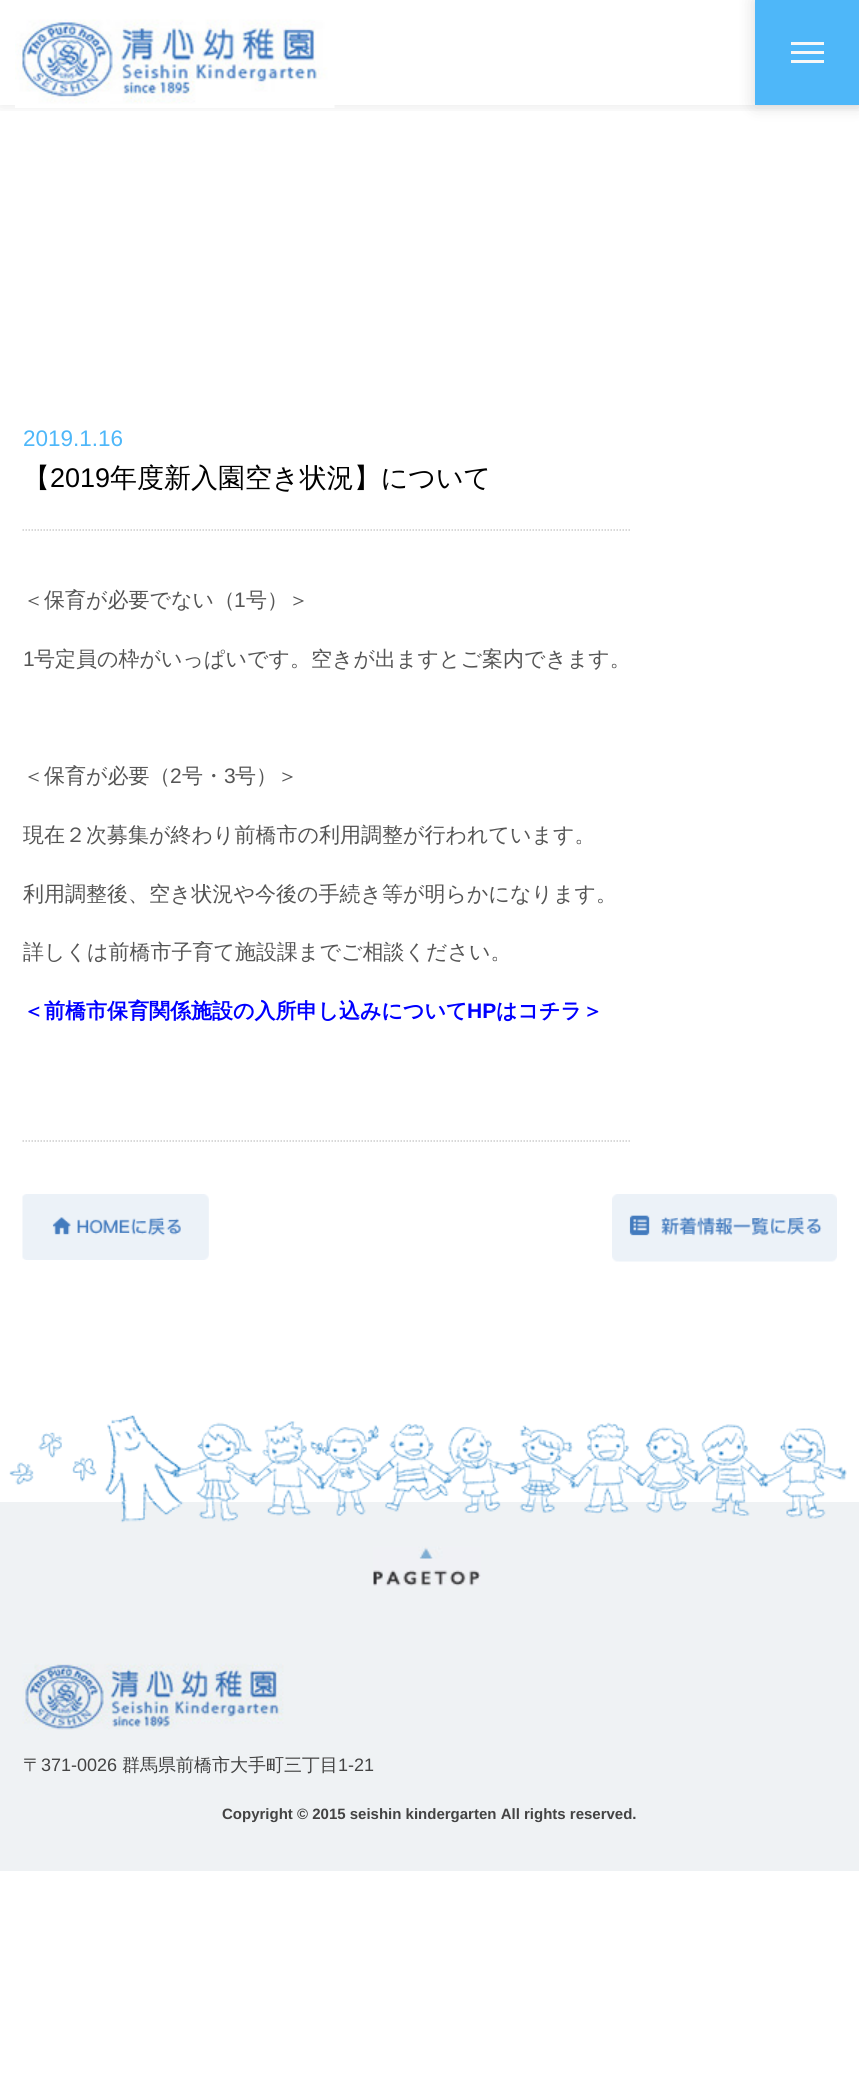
#include <cairo.h>
#include <math.h>
#include <stddef.h>

typedef struct { double x, y; const char *s; } line_t;
typedef struct { double x, y, w, h; unsigned color; } box_t;

static void ink(cairo_t *ctx, unsigned color) {
    cairo_set_source_rgb(ctx, (color >> 16) / 255.0, (color >> 8 & 255) / 255.0, (color & 255) / 255.0);
}

static void round_path(cairo_t *ctx, double x, double y, double w, double h, double r) {
    cairo_new_sub_path(ctx);
    cairo_arc(ctx, x + w - r, y + h - r, r, 0, M_PI / 2);
    cairo_arc(ctx, x + r, y + h - r, r, M_PI / 2, M_PI);
    cairo_arc(ctx, x + r, y + r, r, M_PI, 1.5 * M_PI);
    cairo_arc(ctx, x + w - r, y + r, r, 1.5 * M_PI, 2 * M_PI);
    cairo_close_path(ctx);
}

static void blur_box(cairo_t *ctx, double x, double y, double w, double h, double r, double blur, double alpha) {
    cairo_push_group_with_content(ctx, CAIRO_CONTENT_ALPHA);
    cairo_set_operator(ctx, CAIRO_OPERATOR_SOURCE);
    for (int i = 15; i >= -15 && fmin(w, h) + blur * i / 3 > 0; i -= 2) {
        double e = blur * i / 6;
        cairo_set_source_rgba(ctx, 0, 0, 0, alpha * erfc((i - 1) / 8.5) / 2);
        round_path(ctx, x - e, y - e, w + 2 * e, h + 2 * e, fmax(0, fmin(r + e + blur * .6, fmin(w, h) / 2 + e)));
        cairo_fill(ctx);
    }
    cairo_pattern_t *soft = cairo_pop_group(ctx);
    cairo_mask(ctx, soft);
    cairo_pattern_destroy(soft);
}

static void paste(cairo_t *ctx, const char *path, double x, double y, double w, double h) {
    cairo_surface_t *image = cairo_image_surface_create_from_png(path);
    cairo_save(ctx);
    cairo_set_source_surface(ctx, image, x, y);
    cairo_rectangle(ctx, x, y, w, h);
    cairo_fill(ctx);
    cairo_restore(ctx);
    cairo_surface_destroy(image);
}

int main(void) {
    cairo_surface_t *surface = cairo_image_surface_create(CAIRO_FORMAT_RGB24, 859, 2075);
    cairo_t *ctx = cairo_create(surface);
    cairo_font_options_t *options = cairo_font_options_create();
    cairo_font_options_set_hint_metrics(options, CAIRO_HINT_METRICS_OFF);
    cairo_font_options_set_hint_style(options, CAIRO_HINT_STYLE_NONE);
    cairo_set_font_options(ctx, options);
    cairo_set_miter_limit(ctx, 4);
    ink(ctx, 0xFFFFFF);
    cairo_paint(ctx);
    cairo_save(ctx);
    cairo_rectangle(ctx, 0, 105, 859, 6);
    cairo_clip(ctx);
    ink(ctx, 0x000000);
    blur_box(ctx, 0, 0, 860, 105, 0, 7.5, 0.1);
    cairo_restore(ctx);
    paste(ctx, "media/1.png", 15, 19, 320, 89);
    ink(ctx, 0x000000);
    blur_box(ctx, 755, 0, 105, 105, 0, 9, 0.15);
    {
        static const box_t items[] = {
            {755, 0, 104, 105, 0x4EB7F9},
            {791, 51, 33, 3, 0xF7F8F8},
            {791, 42, 33, 3, 0xF7F8F8},
            {791, 60, 33, 3, 0xF7F8F8},
        };
        for (size_t i = 0; i < sizeof items / sizeof *items; i++) {
            ink(ctx, items[i].color);
            cairo_rectangle(ctx, items[i].x, items[i].y, items[i].w, items[i].h);
            cairo_fill(ctx);
        }
    }
    cairo_select_font_face(ctx, "Liberation Sans", CAIRO_FONT_SLANT_NORMAL, CAIRO_FONT_WEIGHT_NORMAL);
    cairo_set_font_size(ctx, 22.5);
    ink(ctx, 0x4EB7F9);
    cairo_move_to(ctx, 23, 446);
    cairo_show_text(ctx, "2019.1.16");
    cairo_select_font_face(ctx, "WenQuanYi Zen Hei Medium", CAIRO_FONT_SLANT_NORMAL, CAIRO_FONT_WEIGHT_NORMAL);
    cairo_set_font_size(ctx, 27);
    ink(ctx, 0x000000);
    cairo_move_to(ctx, 23, 487);
    cairo_show_text(ctx, "【");
    cairo_select_font_face(ctx, "Liberation Sans", CAIRO_FONT_SLANT_NORMAL, CAIRO_FONT_WEIGHT_NORMAL);
    cairo_move_to(ctx, 50, 487);
    cairo_show_text(ctx, "2019");
    cairo_select_font_face(ctx, "WenQuanYi Zen Hei Medium", CAIRO_FONT_SLANT_NORMAL, CAIRO_FONT_WEIGHT_NORMAL);
    cairo_move_to(ctx, 110, 487);
    cairo_show_text(ctx, "年度新入園空き状況】について");
    cairo_new_path(ctx);
    cairo_move_to(ctx, 22.5, 530);
    cairo_line_to(ctx, 631.5, 530);
    ink(ctx, 0xCCCCCC);
    cairo_set_line_width(ctx, 1.5);
    cairo_set_dash(ctx, (double[]){1.5, 1.5}, 2, 0);
    cairo_stroke(ctx);
    cairo_new_path(ctx);
    cairo_move_to(ctx, 22.5, 1141);
    cairo_line_to(ctx, 631.5, 1141);
    cairo_stroke(ctx);
    cairo_set_font_size(ctx, 21);
    ink(ctx, 0x555555);
    cairo_move_to(ctx, 23, 607);
    cairo_show_text(ctx, "＜保育が必要でない（");
    cairo_select_font_face(ctx, "Liberation Sans", CAIRO_FONT_SLANT_NORMAL, CAIRO_FONT_WEIGHT_NORMAL);
    cairo_move_to(ctx, 234, 607);
    cairo_show_text(ctx, "1");
    cairo_select_font_face(ctx, "WenQuanYi Zen Hei Medium", CAIRO_FONT_SLANT_NORMAL, CAIRO_FONT_WEIGHT_NORMAL);
    cairo_move_to(ctx, 246, 607);
    cairo_show_text(ctx, "号）＞");
    cairo_select_font_face(ctx, "Liberation Sans", CAIRO_FONT_SLANT_NORMAL, CAIRO_FONT_WEIGHT_NORMAL);
    cairo_move_to(ctx, 23, 666);
    cairo_show_text(ctx, "1");
    cairo_select_font_face(ctx, "WenQuanYi Zen Hei Medium", CAIRO_FONT_SLANT_NORMAL, CAIRO_FONT_WEIGHT_NORMAL);
    cairo_move_to(ctx, 34, 666);
    cairo_show_text(ctx, "号定員の枠がいっぱいです。空きが出ますとご案内できます。");
    cairo_move_to(ctx, 23, 783);
    cairo_show_text(ctx, "＜保育が必要（");
    cairo_select_font_face(ctx, "Liberation Sans", CAIRO_FONT_SLANT_NORMAL, CAIRO_FONT_WEIGHT_NORMAL);
    cairo_move_to(ctx, 170, 783);
    cairo_show_text(ctx, "2");
    cairo_select_font_face(ctx, "WenQuanYi Zen Hei Medium", CAIRO_FONT_SLANT_NORMAL, CAIRO_FONT_WEIGHT_NORMAL);
    cairo_move_to(ctx, 182, 783);
    cairo_show_text(ctx, "号・");
    cairo_select_font_face(ctx, "Liberation Sans", CAIRO_FONT_SLANT_NORMAL, CAIRO_FONT_WEIGHT_NORMAL);
    cairo_move_to(ctx, 224, 783);
    cairo_show_text(ctx, "3");
    cairo_select_font_face(ctx, "WenQuanYi Zen Hei Medium", CAIRO_FONT_SLANT_NORMAL, CAIRO_FONT_WEIGHT_NORMAL);
    {
        static const line_t items[] = {
            {235, 783, "号）＞"},
            {23, 842, "現在２次募集が終わり前橋市の利用調整が行われています。"},
            {23, 901, "利用調整後、空き状況や今後の手続き等が明らかになります。"},
            {23, 959, "詳しくは前橋市子育て施設課までご相談ください。"},
        };
        for (size_t i = 0; i < sizeof items / sizeof *items; i++) {
            cairo_move_to(ctx, items[i].x, items[i].y);
            cairo_show_text(ctx, items[i].s);
        }
    }
    cairo_select_font_face(ctx, "WenQuanYi Zen Hei", CAIRO_FONT_SLANT_NORMAL, CAIRO_FONT_WEIGHT_BOLD);
    ink(ctx, 0x0000FF);
    cairo_move_to(ctx, 23, 1018);
    cairo_show_text(ctx, "＜前橋市保育関係施設の入所申し込みについて");
    cairo_select_font_face(ctx, "Liberation Sans", CAIRO_FONT_SLANT_NORMAL, CAIRO_FONT_WEIGHT_BOLD);
    cairo_move_to(ctx, 467, 1018);
    cairo_show_text(ctx, "HP");
    cairo_select_font_face(ctx, "WenQuanYi Zen Hei", CAIRO_FONT_SLANT_NORMAL, CAIRO_FONT_WEIGHT_BOLD);
    cairo_move_to(ctx, 496, 1018);
    cairo_show_text(ctx, "はコチラ＞");
    paste(ctx, "media/2.png", 22, 1194, 187, 66);
    paste(ctx, "media/3.png", 612, 1194, 225, 68);
    ink(ctx, 0xEFF2F4);
    cairo_rectangle(ctx, 0, 1502, 859, 369);
    cairo_fill(ctx);
    paste(ctx, "media/4.png", 9, 1415, 838, 108);
    paste(ctx, "media/5.png", 373, 1546, 108, 40);
    paste(ctx, "media/6.png", 22, 1663, 262, 67);
    cairo_select_font_face(ctx, "WenQuanYi Zen Hei Medium", CAIRO_FONT_SLANT_NORMAL, CAIRO_FONT_WEIGHT_NORMAL);
    cairo_set_font_size(ctx, 18);
    ink(ctx, 0x434343);
    cairo_move_to(ctx, 23, 1771);
    cairo_show_text(ctx, "〒");
    cairo_select_font_face(ctx, "Liberation Sans", CAIRO_FONT_SLANT_NORMAL, CAIRO_FONT_WEIGHT_NORMAL);
    cairo_move_to(ctx, 41, 1771);
    cairo_show_text(ctx, "371-0026");
    cairo_select_font_face(ctx, "WenQuanYi Zen Hei Medium", CAIRO_FONT_SLANT_NORMAL, CAIRO_FONT_WEIGHT_NORMAL);
    cairo_move_to(ctx, 122, 1771);
    cairo_show_text(ctx, "群馬県前橋市大手町三丁目");
    cairo_select_font_face(ctx, "Liberation Sans", CAIRO_FONT_SLANT_NORMAL, CAIRO_FONT_WEIGHT_NORMAL);
    cairo_move_to(ctx, 338, 1771);
    cairo_show_text(ctx, "1-21");
    cairo_select_font_face(ctx, "Liberation Sans", CAIRO_FONT_SLANT_NORMAL, CAIRO_FONT_WEIGHT_BOLD);
    cairo_set_font_size(ctx, 15);
    cairo_move_to(ctx, 222, 1819);
    cairo_show_text(ctx, "Copyright © 2015 seishin kindergarten All rights reserved.");
    cairo_surface_write_to_png(surface, "image.png");
    cairo_font_options_destroy(options);
    cairo_destroy(ctx);
    cairo_surface_destroy(surface);
    return 0;
}
